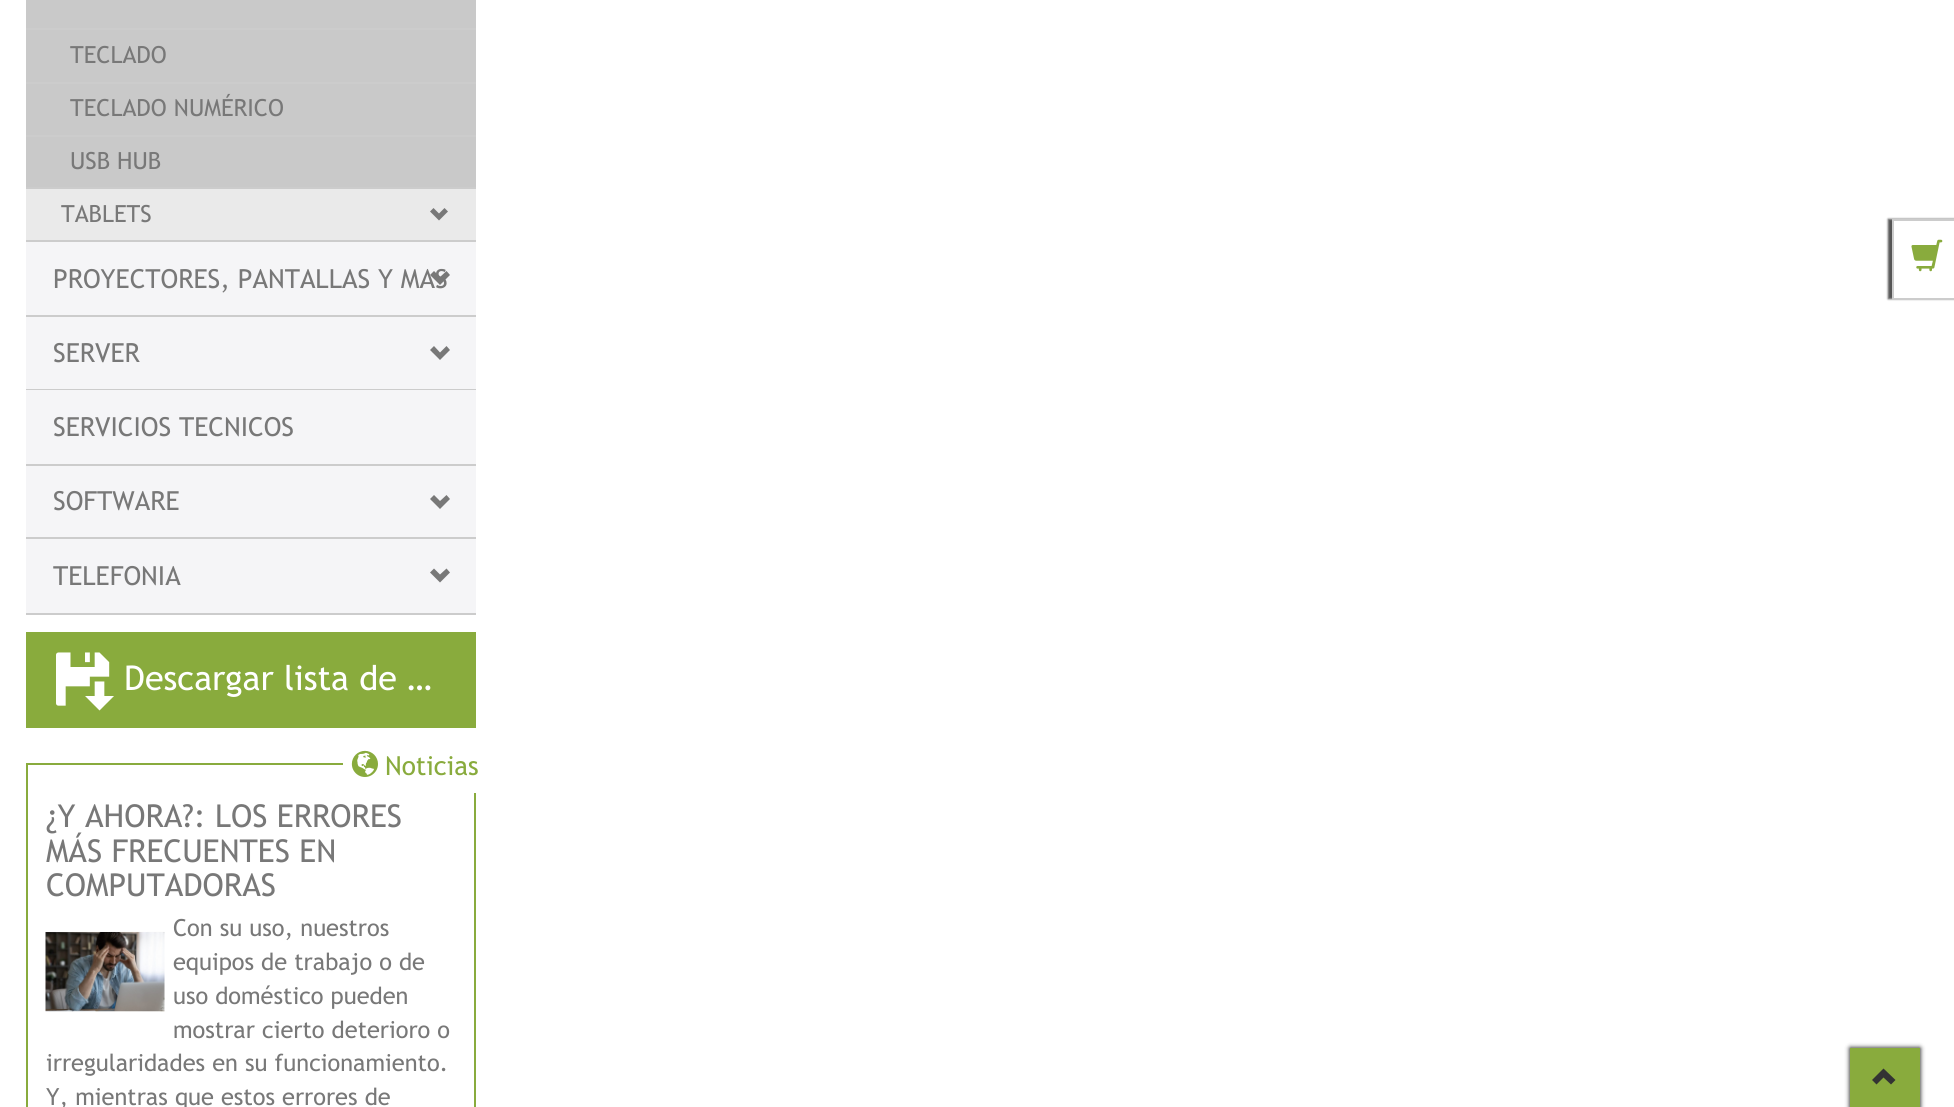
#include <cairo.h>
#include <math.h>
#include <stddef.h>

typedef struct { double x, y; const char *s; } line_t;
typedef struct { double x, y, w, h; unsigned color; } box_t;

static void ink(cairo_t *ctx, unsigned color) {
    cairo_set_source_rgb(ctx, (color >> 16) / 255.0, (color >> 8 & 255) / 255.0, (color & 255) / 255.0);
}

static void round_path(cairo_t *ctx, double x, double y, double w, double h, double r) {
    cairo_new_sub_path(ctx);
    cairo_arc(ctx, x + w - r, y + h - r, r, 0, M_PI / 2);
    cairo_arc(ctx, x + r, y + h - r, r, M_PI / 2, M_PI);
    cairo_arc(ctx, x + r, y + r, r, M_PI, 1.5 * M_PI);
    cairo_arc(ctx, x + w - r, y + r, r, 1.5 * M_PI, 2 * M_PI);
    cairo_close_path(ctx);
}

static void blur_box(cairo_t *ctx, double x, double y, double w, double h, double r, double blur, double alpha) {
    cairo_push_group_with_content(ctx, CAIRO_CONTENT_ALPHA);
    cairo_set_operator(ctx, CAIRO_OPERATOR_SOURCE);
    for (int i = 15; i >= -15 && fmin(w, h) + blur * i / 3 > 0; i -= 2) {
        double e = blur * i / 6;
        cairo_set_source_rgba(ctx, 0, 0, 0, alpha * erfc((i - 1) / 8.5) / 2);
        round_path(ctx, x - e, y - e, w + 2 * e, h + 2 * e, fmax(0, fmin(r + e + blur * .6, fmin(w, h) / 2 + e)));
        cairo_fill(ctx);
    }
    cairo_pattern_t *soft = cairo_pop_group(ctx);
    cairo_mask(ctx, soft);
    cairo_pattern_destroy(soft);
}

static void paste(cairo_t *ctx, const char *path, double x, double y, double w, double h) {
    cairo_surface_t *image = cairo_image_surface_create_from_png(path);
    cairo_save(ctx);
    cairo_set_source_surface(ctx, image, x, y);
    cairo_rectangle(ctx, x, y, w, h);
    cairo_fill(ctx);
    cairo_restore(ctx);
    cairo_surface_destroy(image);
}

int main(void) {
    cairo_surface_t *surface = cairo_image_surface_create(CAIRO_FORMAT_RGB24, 1954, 1107);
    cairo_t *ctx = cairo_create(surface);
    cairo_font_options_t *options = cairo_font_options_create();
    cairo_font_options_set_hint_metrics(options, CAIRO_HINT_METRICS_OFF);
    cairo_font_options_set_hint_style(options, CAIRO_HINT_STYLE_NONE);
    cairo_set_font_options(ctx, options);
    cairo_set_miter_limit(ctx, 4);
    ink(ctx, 0xFFFFFF);
    cairo_paint(ctx);
    {
        static const box_t items[] = {
            {26, 0, 450, 28, 0xC9C9C9},
            {26, 28, 450, 2, 0xCCCCCC},
            {26, 30, 450, 52, 0xC9C9C9},
            {26, 82, 450, 2, 0xCCCCCC},
        };
        for (size_t i = 0; i < sizeof items / sizeof *items; i++) {
            ink(ctx, items[i].color);
            cairo_rectangle(ctx, items[i].x, items[i].y, items[i].w, items[i].h);
            cairo_fill(ctx);
        }
    }
    cairo_select_font_face(ctx, "Trebuchet MS", CAIRO_FONT_SLANT_NORMAL, CAIRO_FONT_WEIGHT_NORMAL);
    cairo_set_font_size(ctx, 23.6);
    ink(ctx, 0x787878);
    cairo_move_to(ctx, 70, 63);
    cairo_show_text(ctx, "TECLADO");
    ink(ctx, 0xC9C9C9);
    cairo_rectangle(ctx, 26, 84, 450, 51);
    cairo_fill(ctx);
    ink(ctx, 0xCCCCCC);
    cairo_rectangle(ctx, 26, 135, 450, 2);
    cairo_fill(ctx);
    ink(ctx, 0x787878);
    cairo_move_to(ctx, 70, 116);
    cairo_show_text(ctx, "TECLADO NUMÉRICO");
    ink(ctx, 0xC9C9C9);
    cairo_rectangle(ctx, 26, 137, 450, 50);
    cairo_fill(ctx);
    ink(ctx, 0xCCCCCC);
    cairo_rectangle(ctx, 26, 187, 450, 2);
    cairo_fill(ctx);
    ink(ctx, 0x787878);
    cairo_move_to(ctx, 70, 169);
    cairo_show_text(ctx, "USB HUB");
    ink(ctx, 0xEAEAEA);
    cairo_rectangle(ctx, 26, 189, 450, 51);
    cairo_fill(ctx);
    ink(ctx, 0xCCCCCC);
    cairo_rectangle(ctx, 26, 240, 450, 2);
    cairo_fill(ctx);
    ink(ctx, 0x787878);
    cairo_move_to(ctx, 61, 222);
    cairo_show_text(ctx, "TABLETS");
    cairo_new_path(ctx);
    cairo_move_to(ctx, 430, 211.5);
    cairo_line_to(ctx, 439, 220.5);
    cairo_line_to(ctx, 448, 211.5);
    cairo_line_to(ctx, 444.5, 208);
    cairo_line_to(ctx, 439, 213.5);
    cairo_line_to(ctx, 433.5, 208);
    cairo_close_path(ctx);
    cairo_fill(ctx);
    ink(ctx, 0xF5F5F7);
    cairo_rectangle(ctx, 26, 242, 450, 73);
    cairo_fill(ctx);
    ink(ctx, 0xCCCCCC);
    cairo_rectangle(ctx, 26, 315, 450, 2);
    cairo_fill(ctx);
    cairo_set_font_size(ctx, 26.25);
    ink(ctx, 0x787878);
    cairo_move_to(ctx, 53, 288);
    cairo_show_text(ctx, "PROYECTORES, PANTALLAS Y MAS");
    cairo_new_path(ctx);
    cairo_move_to(ctx, 430, 275);
    cairo_line_to(ctx, 440, 285);
    cairo_line_to(ctx, 450, 275);
    cairo_line_to(ctx, 446.5, 271);
    cairo_line_to(ctx, 440, 277);
    cairo_line_to(ctx, 434, 271);
    cairo_close_path(ctx);
    cairo_fill(ctx);
    ink(ctx, 0xF5F5F7);
    cairo_rectangle(ctx, 26, 317, 450, 72);
    cairo_fill(ctx);
    ink(ctx, 0xCCCCCC);
    cairo_rectangle(ctx, 26, 389, 450, 1);
    cairo_fill(ctx);
    ink(ctx, 0x787878);
    cairo_move_to(ctx, 53, 362);
    cairo_show_text(ctx, "SERVER");
    cairo_new_path(ctx);
    cairo_move_to(ctx, 430, 350);
    cairo_line_to(ctx, 440, 360);
    cairo_line_to(ctx, 450, 350);
    cairo_line_to(ctx, 446.5, 346);
    cairo_line_to(ctx, 440, 352.5);
    cairo_line_to(ctx, 434, 346);
    cairo_close_path(ctx);
    cairo_fill(ctx);
    ink(ctx, 0xF5F5F7);
    cairo_rectangle(ctx, 26, 390, 450, 74);
    cairo_fill(ctx);
    ink(ctx, 0xCCCCCC);
    cairo_rectangle(ctx, 26, 464, 450, 2);
    cairo_fill(ctx);
    ink(ctx, 0x787878);
    cairo_move_to(ctx, 53, 436);
    cairo_show_text(ctx, "SERVICIOS TECNICOS");
    ink(ctx, 0xF5F5F7);
    cairo_rectangle(ctx, 26, 466, 450, 71);
    cairo_fill(ctx);
    ink(ctx, 0xCCCCCC);
    cairo_rectangle(ctx, 26, 537, 450, 2);
    cairo_fill(ctx);
    ink(ctx, 0x787878);
    cairo_move_to(ctx, 53, 510);
    cairo_show_text(ctx, "SOFTWARE");
    cairo_new_path(ctx);
    cairo_move_to(ctx, 430, 499);
    cairo_line_to(ctx, 440, 509);
    cairo_line_to(ctx, 450, 499);
    cairo_line_to(ctx, 446.5, 495);
    cairo_line_to(ctx, 440, 501);
    cairo_line_to(ctx, 434, 495);
    cairo_close_path(ctx);
    cairo_fill(ctx);
    ink(ctx, 0xF5F5F7);
    cairo_rectangle(ctx, 26, 539, 450, 74);
    cairo_fill(ctx);
    ink(ctx, 0xCCCCCC);
    cairo_rectangle(ctx, 26, 613, 450, 2);
    cairo_fill(ctx);
    ink(ctx, 0x787878);
    cairo_move_to(ctx, 53, 585);
    cairo_show_text(ctx, "TELEFONIA");
    cairo_new_path(ctx);
    cairo_move_to(ctx, 430, 572.5);
    cairo_line_to(ctx, 440, 582.5);
    cairo_line_to(ctx, 450, 572.5);
    cairo_line_to(ctx, 446.5, 568.5);
    cairo_line_to(ctx, 440, 574.5);
    cairo_line_to(ctx, 434, 568.5);
    cairo_close_path(ctx);
    cairo_fill(ctx);
    ink(ctx, 0x89AB3D);
    cairo_rectangle(ctx, 26, 632, 450, 96);
    cairo_fill(ctx);
    paste(ctx, "media/1.png", 56, 652, 58, 59);
    cairo_set_font_size(ctx, 34.1);
    ink(ctx, 0xFFFFFF);
    cairo_move_to(ctx, 124, 690);
    cairo_show_text(ctx, "Descargar lista de …");
    cairo_rectangle(ctx, 27, 764, 448, 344);
    ink(ctx, 0x89AB3D);
    cairo_stroke(ctx);
    ink(ctx, 0xFFFFFF);
    cairo_rectangle(ctx, 343, 763, 133, 30);
    cairo_fill(ctx);
    paste(ctx, "media/2.png", 351, 750, 27, 27);
    cairo_set_font_size(ctx, 26.25);
    ink(ctx, 0x89AB3D);
    cairo_move_to(ctx, 385, 775);
    cairo_show_text(ctx, "Noticias");
    cairo_set_font_size(ctx, 31.5);
    ink(ctx, 0x787878);
    {
        static const line_t items[] = {
            {46, 827, "¿Y AHORA?: LOS ERRORES"},
            {46, 862, "MÁS FRECUENTES EN"},
            {46, 896, "COMPUTADORAS"},
        };
        for (size_t i = 0; i < sizeof items / sizeof *items; i++) {
            cairo_move_to(ctx, items[i].x, items[i].y);
            cairo_show_text(ctx, items[i].s);
        }
    }
    cairo_set_font_size(ctx, 23.6);
    {
        static const line_t items[] = {
            {173, 936, "Con su uso, nuestros"},
            {173, 970, "equipos de trabajo o de"},
            {173, 1004, "uso doméstico pueden"},
            {173, 1038, "mostrar cierto deterioro o"},
            {46, 1071, "irregularidades en su funcionamiento."},
            {46, 1105, "Y, mientras que estos errores de"},
        };
        for (size_t i = 0; i < sizeof items / sizeof *items; i++) {
            cairo_move_to(ctx, items[i].x, items[i].y);
            cairo_show_text(ctx, items[i].s);
        }
    }
    paste(ctx, "media/3.png", 45, 931, 120, 81);
    cairo_save(ctx);
    cairo_set_fill_rule(ctx, CAIRO_FILL_RULE_EVEN_ODD);
    cairo_new_path(ctx);
    cairo_move_to(ctx, 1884, 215);
    cairo_line_to(ctx, 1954, 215);
    cairo_line_to(ctx, 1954, 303);
    cairo_line_to(ctx, 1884, 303);
    cairo_close_path(ctx);
    cairo_move_to(ctx, 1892, 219);
    cairo_line_to(ctx, 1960, 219);
    cairo_line_to(ctx, 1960, 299);
    cairo_line_to(ctx, 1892, 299);
    cairo_close_path(ctx);
    cairo_clip(ctx);
    ink(ctx, 0x555555);
    blur_box(ctx, 1888, 219, 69, 80, 0, 1, 1);
    cairo_restore(ctx);
    {
        static const box_t items[] = {
            {1892, 219, 62, 2, 0xCCCCCC},
            {1892, 298, 62, 2, 0xCCCCCC},
            {1892, 219, 2, 80, 0xCCCCCC},
        };
        for (size_t i = 0; i < sizeof items / sizeof *items; i++) {
            ink(ctx, items[i].color);
            cairo_rectangle(ctx, items[i].x, items[i].y, items[i].w, items[i].h);
            cairo_fill(ctx);
        }
    }
    paste(ctx, "media/4.png", 1911, 239, 32, 33);
    ink(ctx, 0x000000);
    blur_box(ctx, 1850, 1048, 70, 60, 0, 2.5, 1);
    ink(ctx, 0x89AB3D);
    cairo_rectangle(ctx, 1850, 1048, 70, 59);
    cairo_fill(ctx);
    ink(ctx, 0x333333);
    cairo_new_path(ctx);
    cairo_move_to(ctx, 1872, 1080);
    cairo_line_to(ctx, 1876.5, 1084.5);
    cairo_line_to(ctx, 1883.5, 1077.5);
    cairo_line_to(ctx, 1891, 1084.5);
    cairo_line_to(ctx, 1895.5, 1080);
    cairo_line_to(ctx, 1883.5, 1068.5);
    cairo_close_path(ctx);
    cairo_fill(ctx);
    cairo_surface_write_to_png(surface, "image.png");
    cairo_font_options_destroy(options);
    cairo_destroy(ctx);
    cairo_surface_destroy(surface);
    return 0;
}
